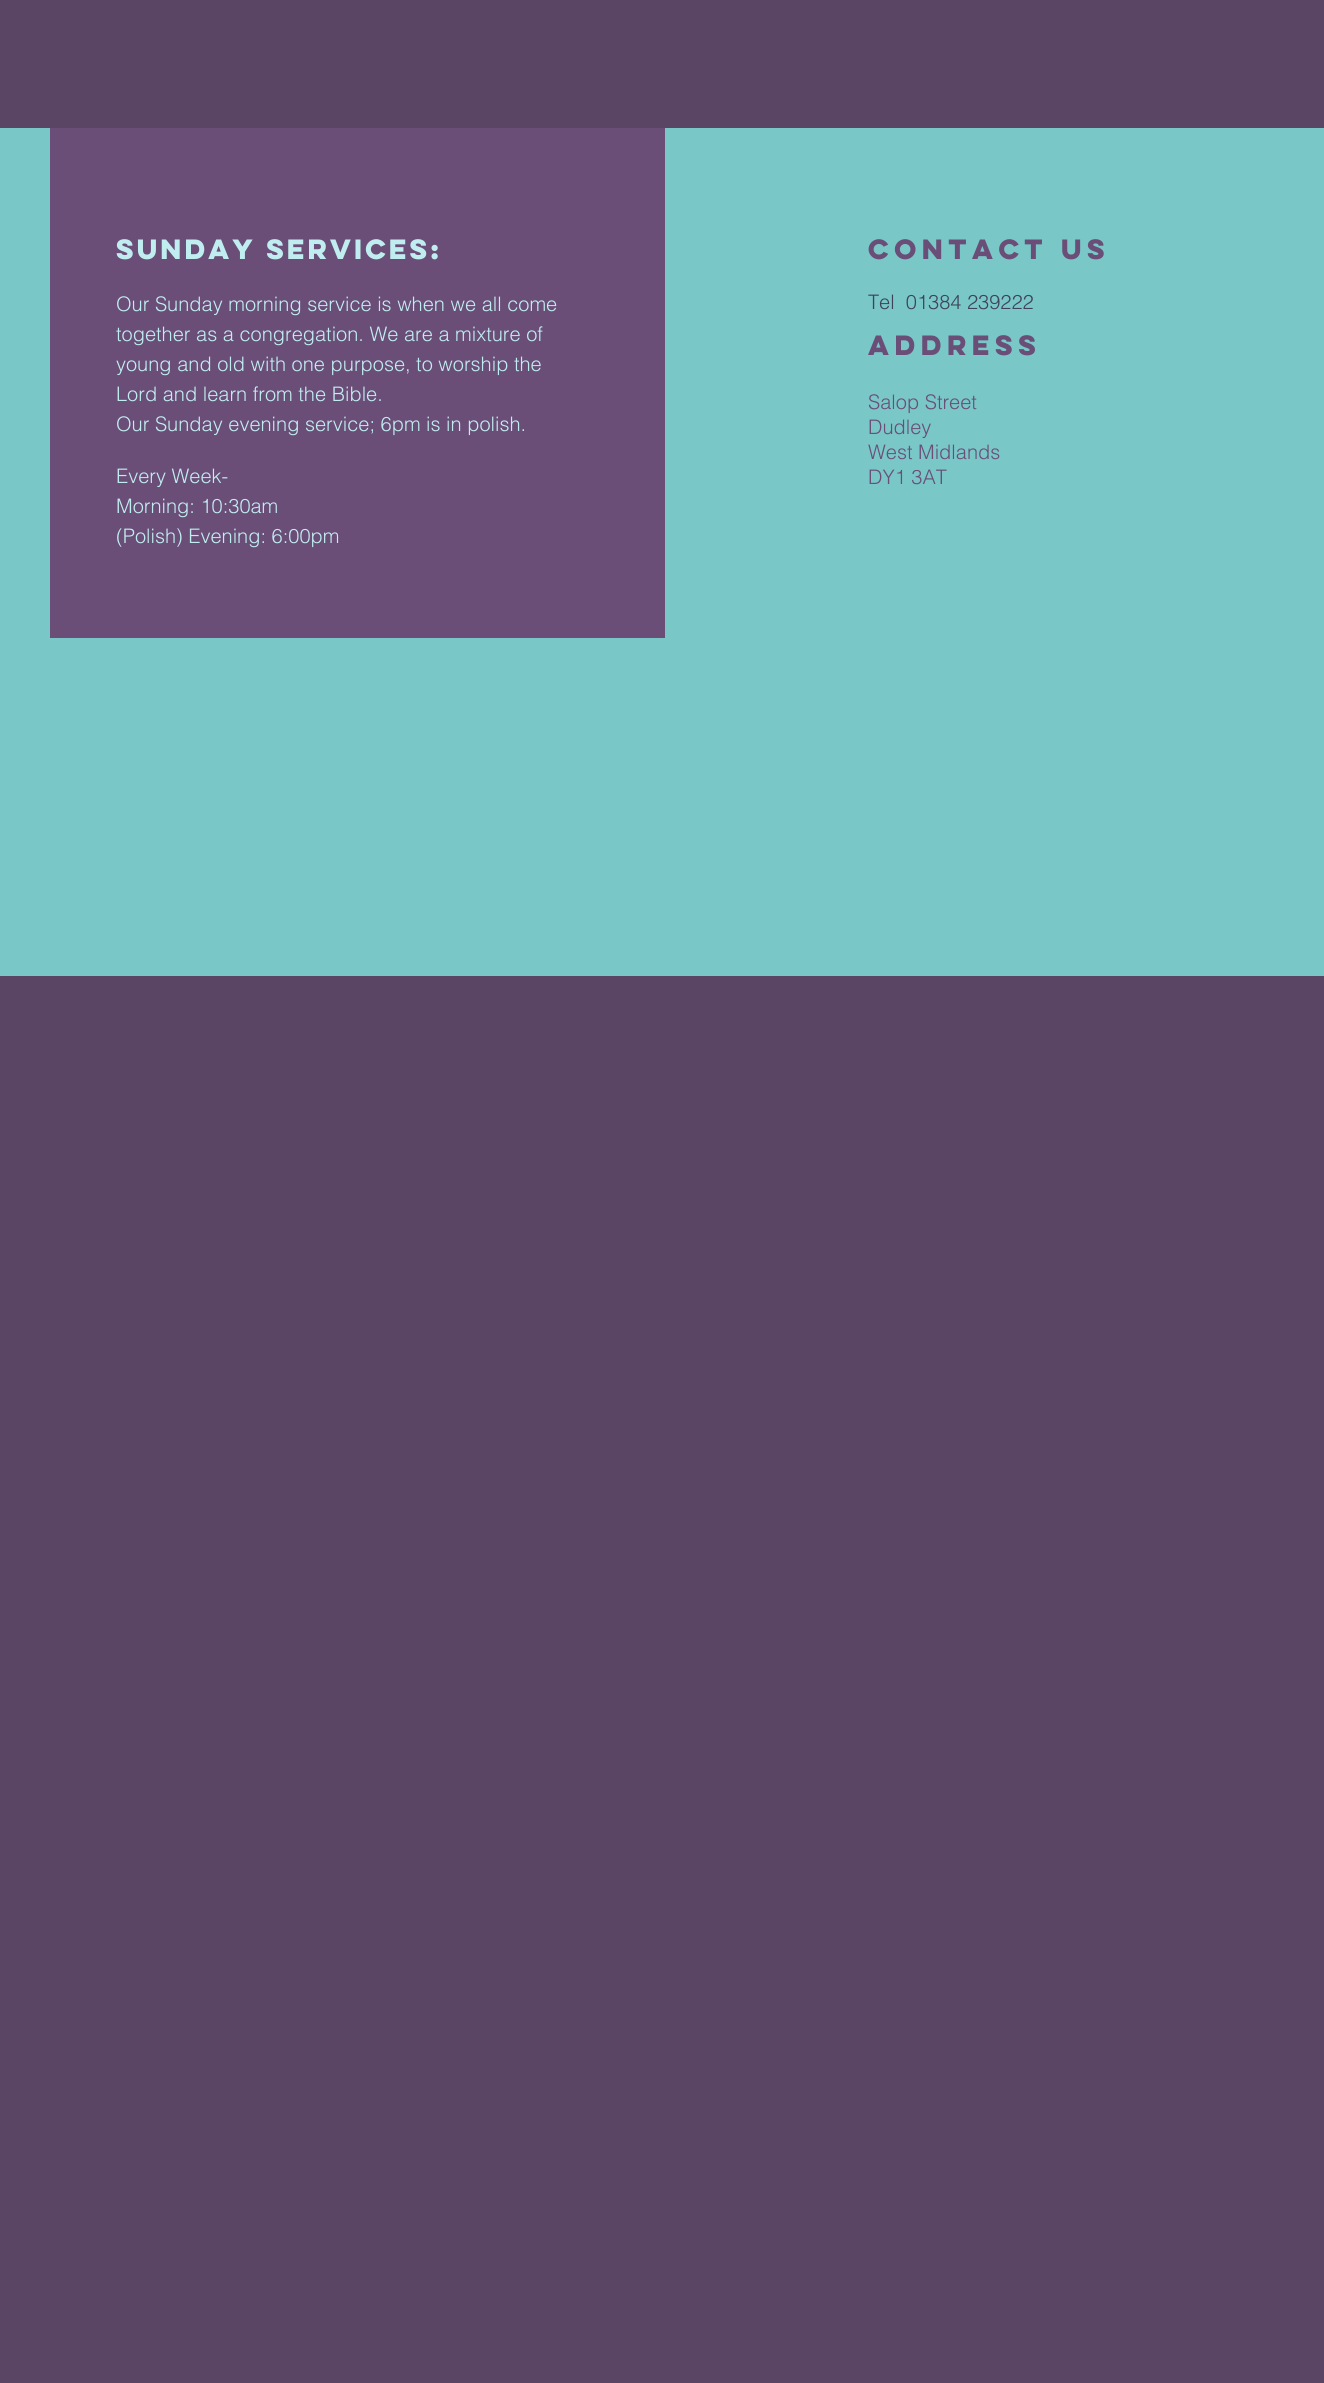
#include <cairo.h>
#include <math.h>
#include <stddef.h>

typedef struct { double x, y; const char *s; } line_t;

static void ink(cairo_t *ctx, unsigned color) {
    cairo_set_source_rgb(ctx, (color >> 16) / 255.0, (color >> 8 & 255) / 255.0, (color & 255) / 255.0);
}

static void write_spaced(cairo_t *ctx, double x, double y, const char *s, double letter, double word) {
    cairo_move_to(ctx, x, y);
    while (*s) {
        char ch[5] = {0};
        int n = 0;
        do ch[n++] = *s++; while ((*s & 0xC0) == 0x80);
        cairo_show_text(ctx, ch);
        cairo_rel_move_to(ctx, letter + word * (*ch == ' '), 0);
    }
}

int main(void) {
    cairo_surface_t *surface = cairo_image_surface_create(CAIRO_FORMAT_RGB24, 1324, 2383);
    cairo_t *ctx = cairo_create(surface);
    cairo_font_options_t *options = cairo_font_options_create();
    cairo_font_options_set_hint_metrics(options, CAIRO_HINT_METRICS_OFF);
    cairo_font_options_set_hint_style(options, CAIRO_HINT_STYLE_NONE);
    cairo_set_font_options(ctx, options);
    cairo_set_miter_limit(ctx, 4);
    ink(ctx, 0x5B4565);
    cairo_paint(ctx);
    ink(ctx, 0x79C7C7);
    cairo_rectangle(ctx, 0, 128, 1324, 848);
    cairo_fill(ctx);
    ink(ctx, 0x6A4E77);
    cairo_rectangle(ctx, 50, 128, 615, 510);
    cairo_fill(ctx);
    cairo_select_font_face(ctx, "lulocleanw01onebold", CAIRO_FONT_SLANT_NORMAL, CAIRO_FONT_WEIGHT_BOLD);
    cairo_set_font_size(ctx, 25);
    ink(ctx, 0xC0EDEF);
    write_spaced(ctx, 116, 259, "Sunday services:", -2.5, 0);
    cairo_select_font_face(ctx, "helvetica Light", CAIRO_FONT_SLANT_NORMAL, CAIRO_FONT_WEIGHT_NORMAL);
    cairo_set_font_size(ctx, 20);
    {
        static const line_t items[] = {
            {116, 311, "Our Sunday morning service is when we all come"},
            {116, 341, "together as a congregation. We are a mixture of"},
            {116, 371, "young and old with one purpose, to worship the"},
            {116, 401, "Lord and learn from the Bible."},
            {116, 431, "Our Sunday evening service; 6pm is in polish."},
            {116, 483, "Every Week-"},
            {116, 513, "Morning: 10:30am"},
            {116, 543, "(Polish) Evening: 6:00pm"},
        };
        for (size_t i = 0; i < sizeof items / sizeof *items; i++) {
            cairo_move_to(ctx, items[i].x, items[i].y);
            cairo_show_text(ctx, items[i].s);
        }
    }
    cairo_select_font_face(ctx, "lulocleanw01onebold", CAIRO_FONT_SLANT_NORMAL, CAIRO_FONT_WEIGHT_BOLD);
    cairo_set_font_size(ctx, 25);
    ink(ctx, 0x6A4E77);
    cairo_move_to(ctx, 868, 259);
    cairo_show_text(ctx, "Contact us");
    cairo_select_font_face(ctx, "helvetica Light", CAIRO_FONT_SLANT_NORMAL, CAIRO_FONT_WEIGHT_NORMAL);
    cairo_set_font_size(ctx, 20);
    ink(ctx, 0x3F4359);
    cairo_move_to(ctx, 868, 309);
    cairo_show_text(ctx, "Tel  01384 239222");
    cairo_select_font_face(ctx, "lulocleanw01onebold", CAIRO_FONT_SLANT_NORMAL, CAIRO_FONT_WEIGHT_BOLD);
    cairo_set_font_size(ctx, 25);
    ink(ctx, 0x6A4E77);
    cairo_move_to(ctx, 868, 355);
    cairo_show_text(ctx, "Address");
    cairo_select_font_face(ctx, "helvetica Light", CAIRO_FONT_SLANT_NORMAL, CAIRO_FONT_WEIGHT_NORMAL);
    cairo_set_font_size(ctx, 20);
    {
        static const line_t items[] = {
            {868, 409, "Salop Street"},
            {868, 434, "Dudley"},
            {868, 459, "West Midlands"},
            {868, 484, "DY1 3AT"},
        };
        for (size_t i = 0; i < sizeof items / sizeof *items; i++) {
            cairo_move_to(ctx, items[i].x, items[i].y);
            cairo_show_text(ctx, items[i].s);
        }
    }
    cairo_surface_write_to_png(surface, "image.png");
    cairo_font_options_destroy(options);
    cairo_destroy(ctx);
    cairo_surface_destroy(surface);
    return 0;
}
